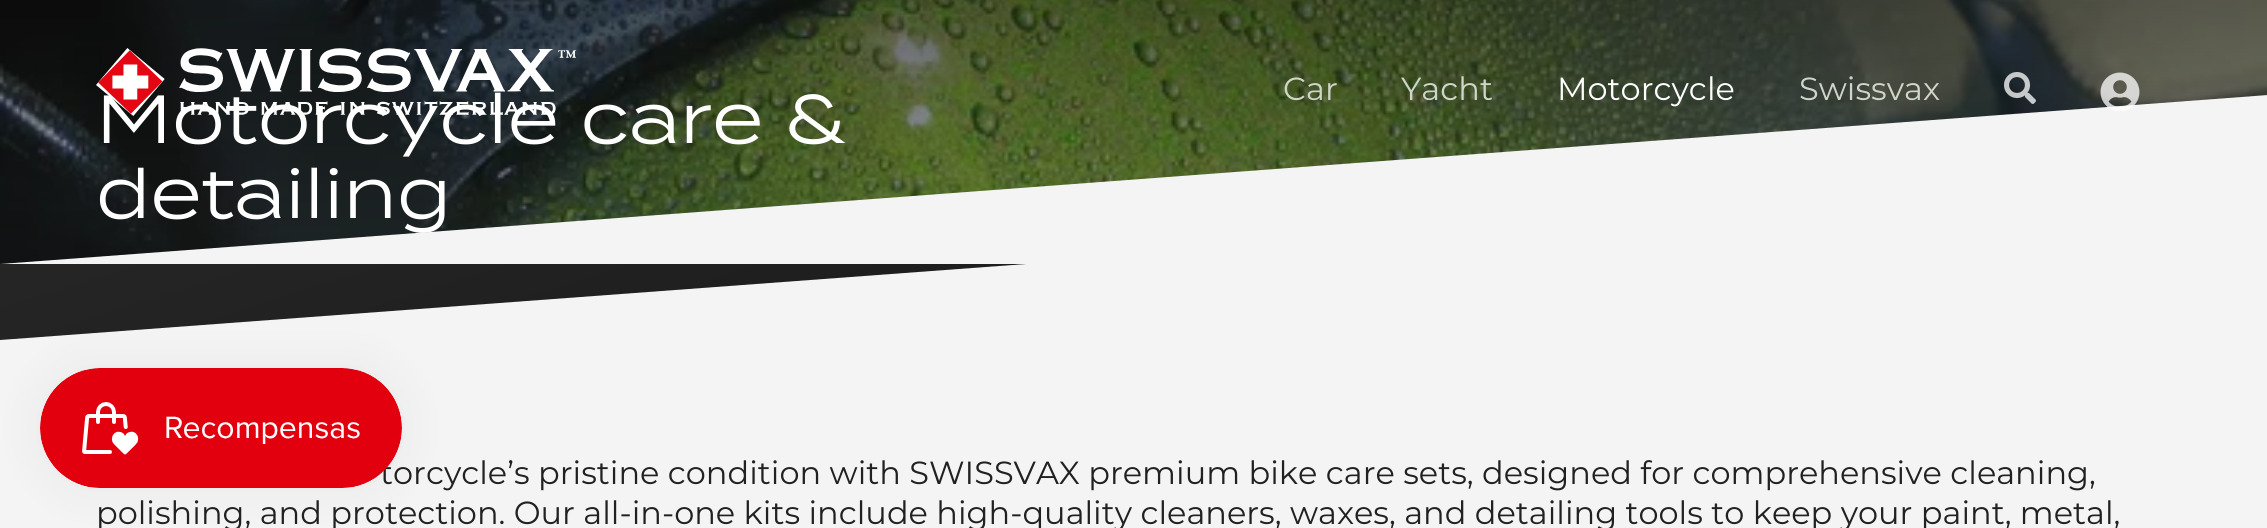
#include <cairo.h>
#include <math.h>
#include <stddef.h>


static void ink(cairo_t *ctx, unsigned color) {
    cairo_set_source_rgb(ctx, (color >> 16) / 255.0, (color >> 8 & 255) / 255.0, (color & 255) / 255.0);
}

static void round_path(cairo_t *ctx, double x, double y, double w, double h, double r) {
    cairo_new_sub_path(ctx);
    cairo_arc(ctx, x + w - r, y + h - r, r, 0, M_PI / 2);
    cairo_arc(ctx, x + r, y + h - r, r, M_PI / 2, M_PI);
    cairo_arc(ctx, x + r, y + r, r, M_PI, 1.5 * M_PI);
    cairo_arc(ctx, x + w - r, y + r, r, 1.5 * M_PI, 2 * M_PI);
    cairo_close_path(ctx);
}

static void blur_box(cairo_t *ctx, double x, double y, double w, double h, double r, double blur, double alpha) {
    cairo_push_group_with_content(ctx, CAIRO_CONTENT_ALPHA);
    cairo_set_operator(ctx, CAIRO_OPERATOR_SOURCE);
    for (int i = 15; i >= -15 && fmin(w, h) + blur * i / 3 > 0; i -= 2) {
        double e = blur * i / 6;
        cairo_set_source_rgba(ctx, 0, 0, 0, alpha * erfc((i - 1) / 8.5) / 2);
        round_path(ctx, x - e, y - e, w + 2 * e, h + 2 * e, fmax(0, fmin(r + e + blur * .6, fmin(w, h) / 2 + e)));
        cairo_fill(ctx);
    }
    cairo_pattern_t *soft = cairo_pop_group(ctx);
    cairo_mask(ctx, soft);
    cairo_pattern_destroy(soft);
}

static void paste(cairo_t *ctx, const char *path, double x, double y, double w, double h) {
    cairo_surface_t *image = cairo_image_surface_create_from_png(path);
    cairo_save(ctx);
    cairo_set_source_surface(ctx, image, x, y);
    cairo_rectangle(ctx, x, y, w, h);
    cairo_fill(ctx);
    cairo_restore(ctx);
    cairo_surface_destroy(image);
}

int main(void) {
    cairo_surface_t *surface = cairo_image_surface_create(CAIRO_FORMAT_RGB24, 2267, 528);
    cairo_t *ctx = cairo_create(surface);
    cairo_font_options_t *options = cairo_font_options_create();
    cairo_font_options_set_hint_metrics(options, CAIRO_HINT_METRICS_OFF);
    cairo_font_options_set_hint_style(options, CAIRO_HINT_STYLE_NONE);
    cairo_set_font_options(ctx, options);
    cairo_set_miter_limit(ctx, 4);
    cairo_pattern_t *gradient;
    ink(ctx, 0xF4F4F4);
    cairo_paint(ctx);
    gradient = cairo_pattern_create_linear(974, -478, 1294, 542);
    cairo_pattern_add_color_stop_rgba(gradient, 0, 0.192, 0.192, 0.192, 1);
    cairo_pattern_add_color_stop_rgba(gradient, 1, 0.078, 0.078, 0.078, 1);
    cairo_set_source(ctx, gradient);
    cairo_pattern_destroy(gradient);
    cairo_new_path(ctx);
    cairo_move_to(ctx, 0, -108);
    cairo_line_to(ctx, 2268, -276);
    cairo_line_to(ctx, 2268, 172);
    cairo_line_to(ctx, 0, 340);
    cairo_close_path(ctx);
    cairo_fill(ctx);
    paste(ctx, "media/4.png", 0, 0, 2267, 264);
    cairo_select_font_face(ctx, "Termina", CAIRO_FONT_SLANT_NORMAL, CAIRO_FONT_WEIGHT_NORMAL);
    cairo_set_font_size(ctx, 68);
    ink(ctx, 0xFFFFFF);
    cairo_move_to(ctx, 96, 143);
    cairo_show_text(ctx, "Motorcycle care &");
    cairo_move_to(ctx, 96, 218);
    cairo_show_text(ctx, "detailing");
    cairo_save(ctx);
    cairo_rectangle(ctx, 0, 0, 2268, 264);
    cairo_clip(ctx);
    ink(ctx, 0xF4F4F4);
    cairo_new_path(ctx);
    cairo_move_to(ctx, 0, 264);
    cairo_line_to(ctx, 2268, 95);
    cairo_line_to(ctx, 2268, 351);
    cairo_line_to(ctx, 0, 520);
    cairo_close_path(ctx);
    cairo_fill(ctx);
    cairo_restore(ctx);
    paste(ctx, "media/1.png", 96, 48, 480, 68);
    cairo_select_font_face(ctx, "Montserrat", CAIRO_FONT_SLANT_NORMAL, CAIRO_FONT_WEIGHT_NORMAL);
    cairo_set_font_size(ctx, 32);
    ink(ctx, 0xD0D5C9);
    cairo_move_to(ctx, 1283, 100);
    cairo_show_text(ctx, "Car");
    cairo_move_to(ctx, 1401, 100);
    cairo_show_text(ctx, "Yacht");
    ink(ctx, 0xFFFFFF);
    cairo_move_to(ctx, 1557, 100);
    cairo_show_text(ctx, "Motorcycle");
    ink(ctx, 0xD0D5C9);
    cairo_move_to(ctx, 1799, 100);
    cairo_show_text(ctx, "Swissvax");
    paste(ctx, "media/2.png", 2004, 72, 32, 32);
    paste(ctx, "media/3.png", 2100, 72, 40, 39);
    ink(ctx, 0x212121);
    cairo_move_to(ctx, 380, 484);
    cairo_show_text(ctx, "torcycle’s pristine condition with SWISSVAX premium bike care sets, designed for comprehensive cleaning,");
    cairo_move_to(ctx, 96, 524);
    cairo_show_text(ctx, "polishing, and protection. Our all-in-one kits include high-quality cleaners, waxes, and detailing tools to keep your paint, metal,");
    ink(ctx, 0x000000);
    blur_box(ctx, 40, 368, 362, 120, 60, 25, 0.05);
    paste(ctx, "media/5.png", 40, 368, 362, 120);
    cairo_surface_write_to_png(surface, "image.png");
    cairo_font_options_destroy(options);
    cairo_destroy(ctx);
    cairo_surface_destroy(surface);
    return 0;
}
